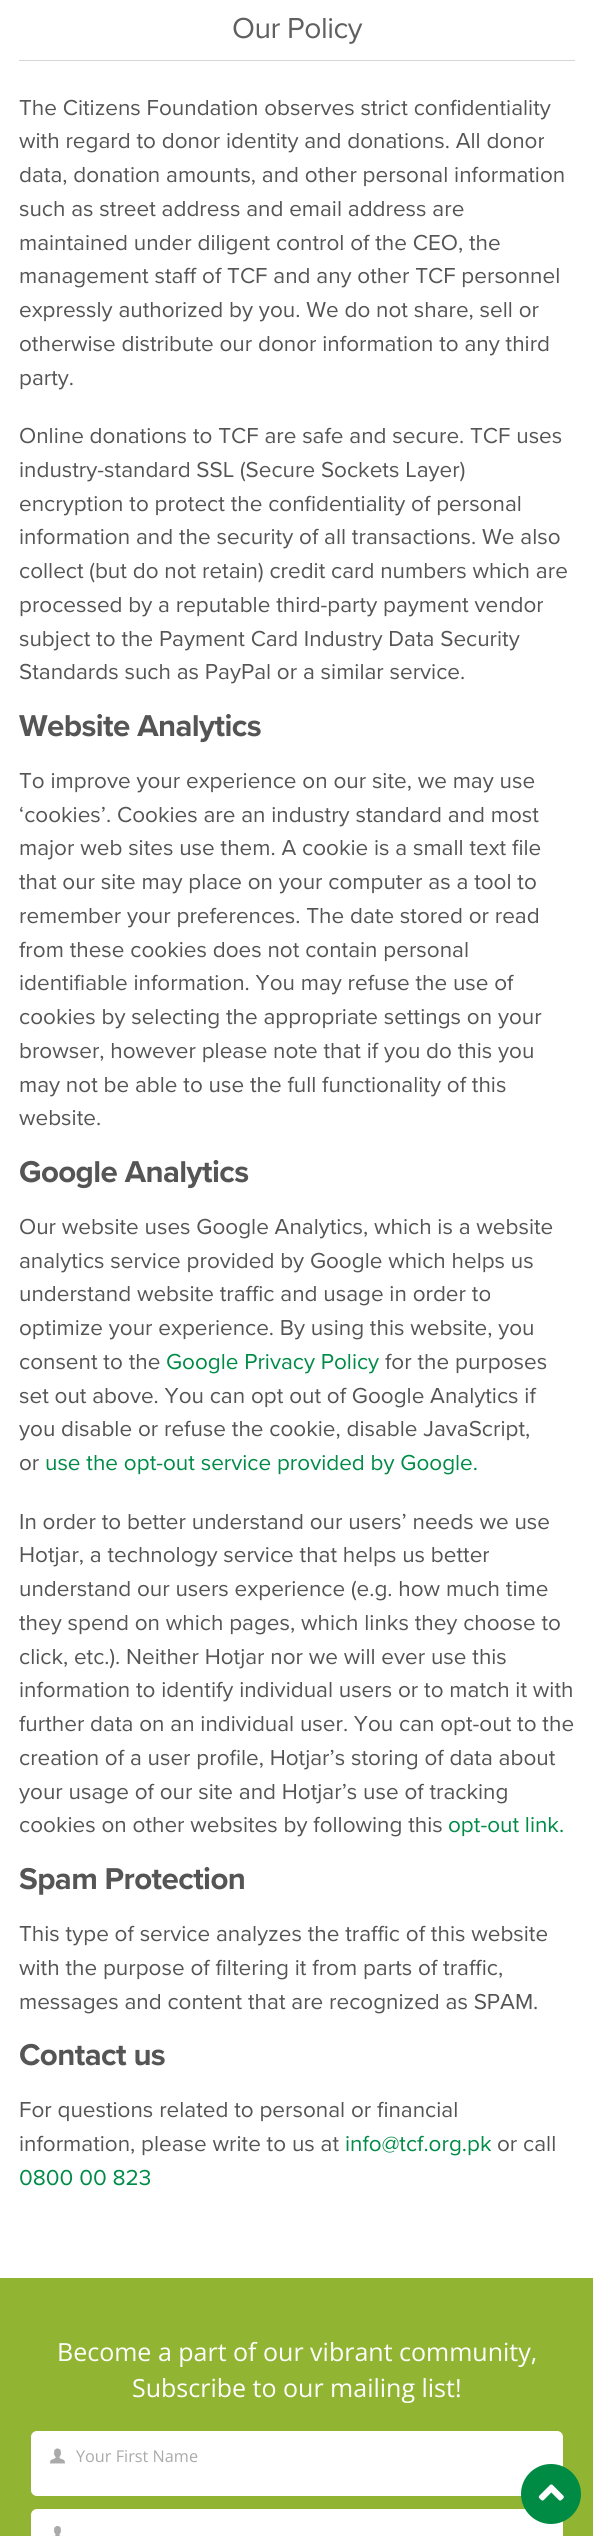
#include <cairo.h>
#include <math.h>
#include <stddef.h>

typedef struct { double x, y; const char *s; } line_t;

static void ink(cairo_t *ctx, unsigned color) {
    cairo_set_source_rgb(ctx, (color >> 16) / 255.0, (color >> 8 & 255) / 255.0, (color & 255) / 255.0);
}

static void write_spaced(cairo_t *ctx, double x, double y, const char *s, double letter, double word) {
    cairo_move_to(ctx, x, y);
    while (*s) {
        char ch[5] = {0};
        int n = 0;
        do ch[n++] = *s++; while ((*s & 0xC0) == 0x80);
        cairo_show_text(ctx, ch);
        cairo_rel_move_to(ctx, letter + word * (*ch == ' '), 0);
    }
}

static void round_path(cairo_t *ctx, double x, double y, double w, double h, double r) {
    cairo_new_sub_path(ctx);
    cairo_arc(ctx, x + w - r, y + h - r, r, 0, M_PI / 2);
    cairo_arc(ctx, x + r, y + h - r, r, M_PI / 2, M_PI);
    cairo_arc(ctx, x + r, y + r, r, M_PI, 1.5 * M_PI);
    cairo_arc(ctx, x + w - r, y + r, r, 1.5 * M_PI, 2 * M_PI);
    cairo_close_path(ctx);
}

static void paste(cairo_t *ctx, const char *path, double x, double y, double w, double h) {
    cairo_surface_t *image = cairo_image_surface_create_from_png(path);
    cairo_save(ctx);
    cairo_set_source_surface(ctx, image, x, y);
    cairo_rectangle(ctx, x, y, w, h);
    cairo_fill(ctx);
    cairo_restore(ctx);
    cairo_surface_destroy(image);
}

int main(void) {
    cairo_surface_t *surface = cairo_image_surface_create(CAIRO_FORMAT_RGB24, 593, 2536);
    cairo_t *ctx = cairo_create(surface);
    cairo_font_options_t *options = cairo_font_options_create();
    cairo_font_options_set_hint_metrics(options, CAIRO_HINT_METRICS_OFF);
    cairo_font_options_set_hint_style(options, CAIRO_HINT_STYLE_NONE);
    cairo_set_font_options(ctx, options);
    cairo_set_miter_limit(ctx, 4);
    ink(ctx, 0xFFFFFF);
    cairo_paint(ctx);
    ink(ctx, 0xD6D6D6);
    cairo_rectangle(ctx, 19, 60, 556, 1);
    cairo_fill(ctx);
    cairo_select_font_face(ctx, "Proxima Nova", CAIRO_FONT_SLANT_NORMAL, CAIRO_FONT_WEIGHT_NORMAL);
    cairo_set_font_size(ctx, 30);
    ink(ctx, 0x616060);
    write_spaced(ctx, 232, 38, "Our Policy", -0.5, 0);
    cairo_set_font_size(ctx, 22.5);
    ink(ctx, 0x555555);
    {
        static const line_t items[] = {
            {19, 115, "The Citizens Foundation observes strict confidentiality"},
            {19, 148, "with regard to donor identity and donations. All donor"},
            {19, 182, "data, donation amounts, and other personal information"},
            {19, 216, "such as street address and email address are"},
            {19, 250, "maintained under diligent control of the CEO, the"},
            {19, 283, "management staff of TCF and any other TCF personnel"},
            {19, 317, "expressly authorized by you. We do not share, sell or"},
            {19, 351, "otherwise distribute our donor information to any third"},
            {19, 385, "party."},
            {19, 443, "Online donations to TCF are safe and secure. TCF uses"},
            {19, 477, "industry-standard SSL (Secure Sockets Layer)"},
            {19, 511, "encryption to protect the confidentiality of personal"},
            {19, 544, "information and the security of all transactions. We also"},
            {19, 578, "collect (but do not retain) credit card numbers which are"},
            {19, 612, "processed by a reputable third-party payment vendor"},
            {19, 646, "subject to the Payment Card Industry Data Security"},
            {19, 679, "Standards such as PayPal or a similar service."},
        };
        for (size_t i = 0; i < sizeof items / sizeof *items; i++) {
            cairo_move_to(ctx, items[i].x, items[i].y);
            cairo_show_text(ctx, items[i].s);
        }
    }
    cairo_select_font_face(ctx, "Proxima Nova", CAIRO_FONT_SLANT_NORMAL, CAIRO_FONT_WEIGHT_BOLD);
    cairo_set_font_size(ctx, 31.25);
    write_spaced(ctx, 19, 736, "Website Analytics", -0.6, 0);
    cairo_select_font_face(ctx, "Proxima Nova", CAIRO_FONT_SLANT_NORMAL, CAIRO_FONT_WEIGHT_NORMAL);
    cairo_set_font_size(ctx, 22.5);
    {
        static const line_t items[] = {
            {19, 788, "To improve your experience on our site, we may use"},
            {19, 822, "‘cookies’. Cookies are an industry standard and most"},
            {19, 855, "major web sites use them. A cookie is a small text file"},
            {19, 889, "that our site may place on your computer as a tool to"},
            {19, 923, "remember your preferences. The date stored or read"},
            {19, 957, "from these cookies does not contain personal"},
            {19, 990, "identifiable information. You may refuse the use of"},
            {19, 1024, "cookies by selecting the appropriate settings on your"},
            {19, 1058, "browser, however please note that if you do this you"},
            {19, 1092, "may not be able to use the full functionality of this"},
            {19, 1125, "website."},
        };
        for (size_t i = 0; i < sizeof items / sizeof *items; i++) {
            cairo_move_to(ctx, items[i].x, items[i].y);
            cairo_show_text(ctx, items[i].s);
        }
    }
    cairo_select_font_face(ctx, "Proxima Nova", CAIRO_FONT_SLANT_NORMAL, CAIRO_FONT_WEIGHT_BOLD);
    cairo_set_font_size(ctx, 31.25);
    write_spaced(ctx, 19, 1182, "Google Analytics", -0.6, 0);
    cairo_select_font_face(ctx, "Proxima Nova", CAIRO_FONT_SLANT_NORMAL, CAIRO_FONT_WEIGHT_NORMAL);
    cairo_set_font_size(ctx, 22.5);
    {
        static const line_t items[] = {
            {19, 1234, "Our website uses Google Analytics, which is a website"},
            {19, 1268, "analytics service provided by Google which helps us"},
            {19, 1301, "understand website traffic and usage in order to"},
            {19, 1335, "optimize your experience. By using this website, you"},
            {19, 1369, "consent to the"},
        };
        for (size_t i = 0; i < sizeof items / sizeof *items; i++) {
            cairo_move_to(ctx, items[i].x, items[i].y);
            cairo_show_text(ctx, items[i].s);
        }
    }
    ink(ctx, 0x008B47);
    cairo_move_to(ctx, 166, 1369);
    cairo_show_text(ctx, "Google Privacy Policy");
    ink(ctx, 0x555555);
    {
        static const line_t items[] = {
            {385, 1369, "for the purposes"},
            {19, 1403, "set out above. You can opt out of Google Analytics if"},
            {19, 1436, "you disable or refuse the cookie, disable JavaScript,"},
            {19, 1470, "or"},
        };
        for (size_t i = 0; i < sizeof items / sizeof *items; i++) {
            cairo_move_to(ctx, items[i].x, items[i].y);
            cairo_show_text(ctx, items[i].s);
        }
    }
    ink(ctx, 0x008B47);
    cairo_move_to(ctx, 45, 1470);
    cairo_show_text(ctx, "use the opt-out service provided by Google.");
    ink(ctx, 0x555555);
    {
        static const line_t items[] = {
            {19, 1529, "In order to better understand our users’ needs we use"},
            {19, 1562, "Hotjar, a technology service that helps us better"},
            {19, 1596, "understand our users experience (e.g. how much time"},
            {19, 1630, "they spend on which pages, which links they choose to"},
            {19, 1664, "click, etc.). Neither Hotjar nor we will ever use this"},
            {19, 1697, "information to identify individual users or to match it with"},
            {19, 1731, "further data on an individual user. You can opt-out to the"},
            {19, 1765, "creation of a user profile, Hotjar’s storing of data about"},
            {19, 1799, "your usage of our site and Hotjar’s use of tracking"},
            {19, 1832, "cookies on other websites by following this"},
        };
        for (size_t i = 0; i < sizeof items / sizeof *items; i++) {
            cairo_move_to(ctx, items[i].x, items[i].y);
            cairo_show_text(ctx, items[i].s);
        }
    }
    ink(ctx, 0x008B47);
    cairo_move_to(ctx, 448, 1832);
    cairo_show_text(ctx, "opt-out link.");
    cairo_select_font_face(ctx, "Proxima Nova", CAIRO_FONT_SLANT_NORMAL, CAIRO_FONT_WEIGHT_BOLD);
    cairo_set_font_size(ctx, 31.25);
    ink(ctx, 0x555555);
    write_spaced(ctx, 19, 1889, "Spam Protection", -0.6, 0);
    cairo_select_font_face(ctx, "Proxima Nova", CAIRO_FONT_SLANT_NORMAL, CAIRO_FONT_WEIGHT_NORMAL);
    cairo_set_font_size(ctx, 22.5);
    {
        static const line_t items[] = {
            {19, 1941, "This type of service analyzes the traffic of this website"},
            {19, 1975, "with the purpose of filtering it from parts of traffic,"},
            {19, 2009, "messages and content that are recognized as SPAM."},
        };
        for (size_t i = 0; i < sizeof items / sizeof *items; i++) {
            cairo_move_to(ctx, items[i].x, items[i].y);
            cairo_show_text(ctx, items[i].s);
        }
    }
    cairo_select_font_face(ctx, "Proxima Nova", CAIRO_FONT_SLANT_NORMAL, CAIRO_FONT_WEIGHT_BOLD);
    cairo_set_font_size(ctx, 31.25);
    write_spaced(ctx, 19, 2065, "Contact us", -0.6, 0);
    cairo_select_font_face(ctx, "Proxima Nova", CAIRO_FONT_SLANT_NORMAL, CAIRO_FONT_WEIGHT_NORMAL);
    cairo_set_font_size(ctx, 22.5);
    cairo_move_to(ctx, 19, 2117);
    cairo_show_text(ctx, "For questions related to personal or financial");
    cairo_move_to(ctx, 19, 2151);
    cairo_show_text(ctx, "information, please write to us at");
    ink(ctx, 0x008B47);
    cairo_move_to(ctx, 345, 2151);
    cairo_show_text(ctx, "info@tcf.org.pk");
    ink(ctx, 0x555555);
    cairo_move_to(ctx, 497, 2151);
    cairo_show_text(ctx, "or call");
    ink(ctx, 0x008B47);
    cairo_move_to(ctx, 19, 2185);
    cairo_show_text(ctx, "0800 00 823");
    ink(ctx, 0x91B433);
    cairo_rectangle(ctx, 0, 2278, 593, 258);
    cairo_fill(ctx);
    cairo_select_font_face(ctx, "Open Sans", CAIRO_FONT_SLANT_NORMAL, CAIRO_FONT_WEIGHT_NORMAL);
    cairo_set_font_size(ctx, 25);
    ink(ctx, 0xFFFFFF);
    cairo_move_to(ctx, 57, 2361);
    cairo_show_text(ctx, "Become a part of our vibrant community,");
    cairo_move_to(ctx, 132, 2397);
    cairo_show_text(ctx, "Subscribe to our mailing list!");
    round_path(ctx, 31.5, 2431.5, 531, 64, 5.5);
    cairo_fill_preserve(ctx);
    cairo_set_line_width(ctx, 1);
    cairo_stroke(ctx);
    paste(ctx, "media/1.png", 50, 2448, 15, 16);
    cairo_set_font_size(ctx, 16.25);
    ink(ctx, 0xAAAAAA);
    cairo_move_to(ctx, 76, 2462);
    cairo_show_text(ctx, "Your First Name");
    ink(ctx, 0xFFFFFF);
    round_path(ctx, 31.5, 2509.5, 531, 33, 5.5);
    cairo_fill_preserve(ctx);
    cairo_stroke(ctx);
    paste(ctx, "media/2.png", 53, 2526, 8, 10);
    cairo_arc(ctx, 551, 2494, 27.5, 0, 2 * M_PI);
    ink(ctx, 0x008B44);
    cairo_set_line_width(ctx, 5);
    cairo_stroke(ctx);
    cairo_arc(ctx, 551.5, 2493.5, 27.5, 0, 2 * M_PI);
    cairo_fill(ctx);
    paste(ctx, "media/3.png", 538, 2484, 26, 17);
    cairo_surface_write_to_png(surface, "image.png");
    cairo_font_options_destroy(options);
    cairo_destroy(ctx);
    cairo_surface_destroy(surface);
    return 0;
}
